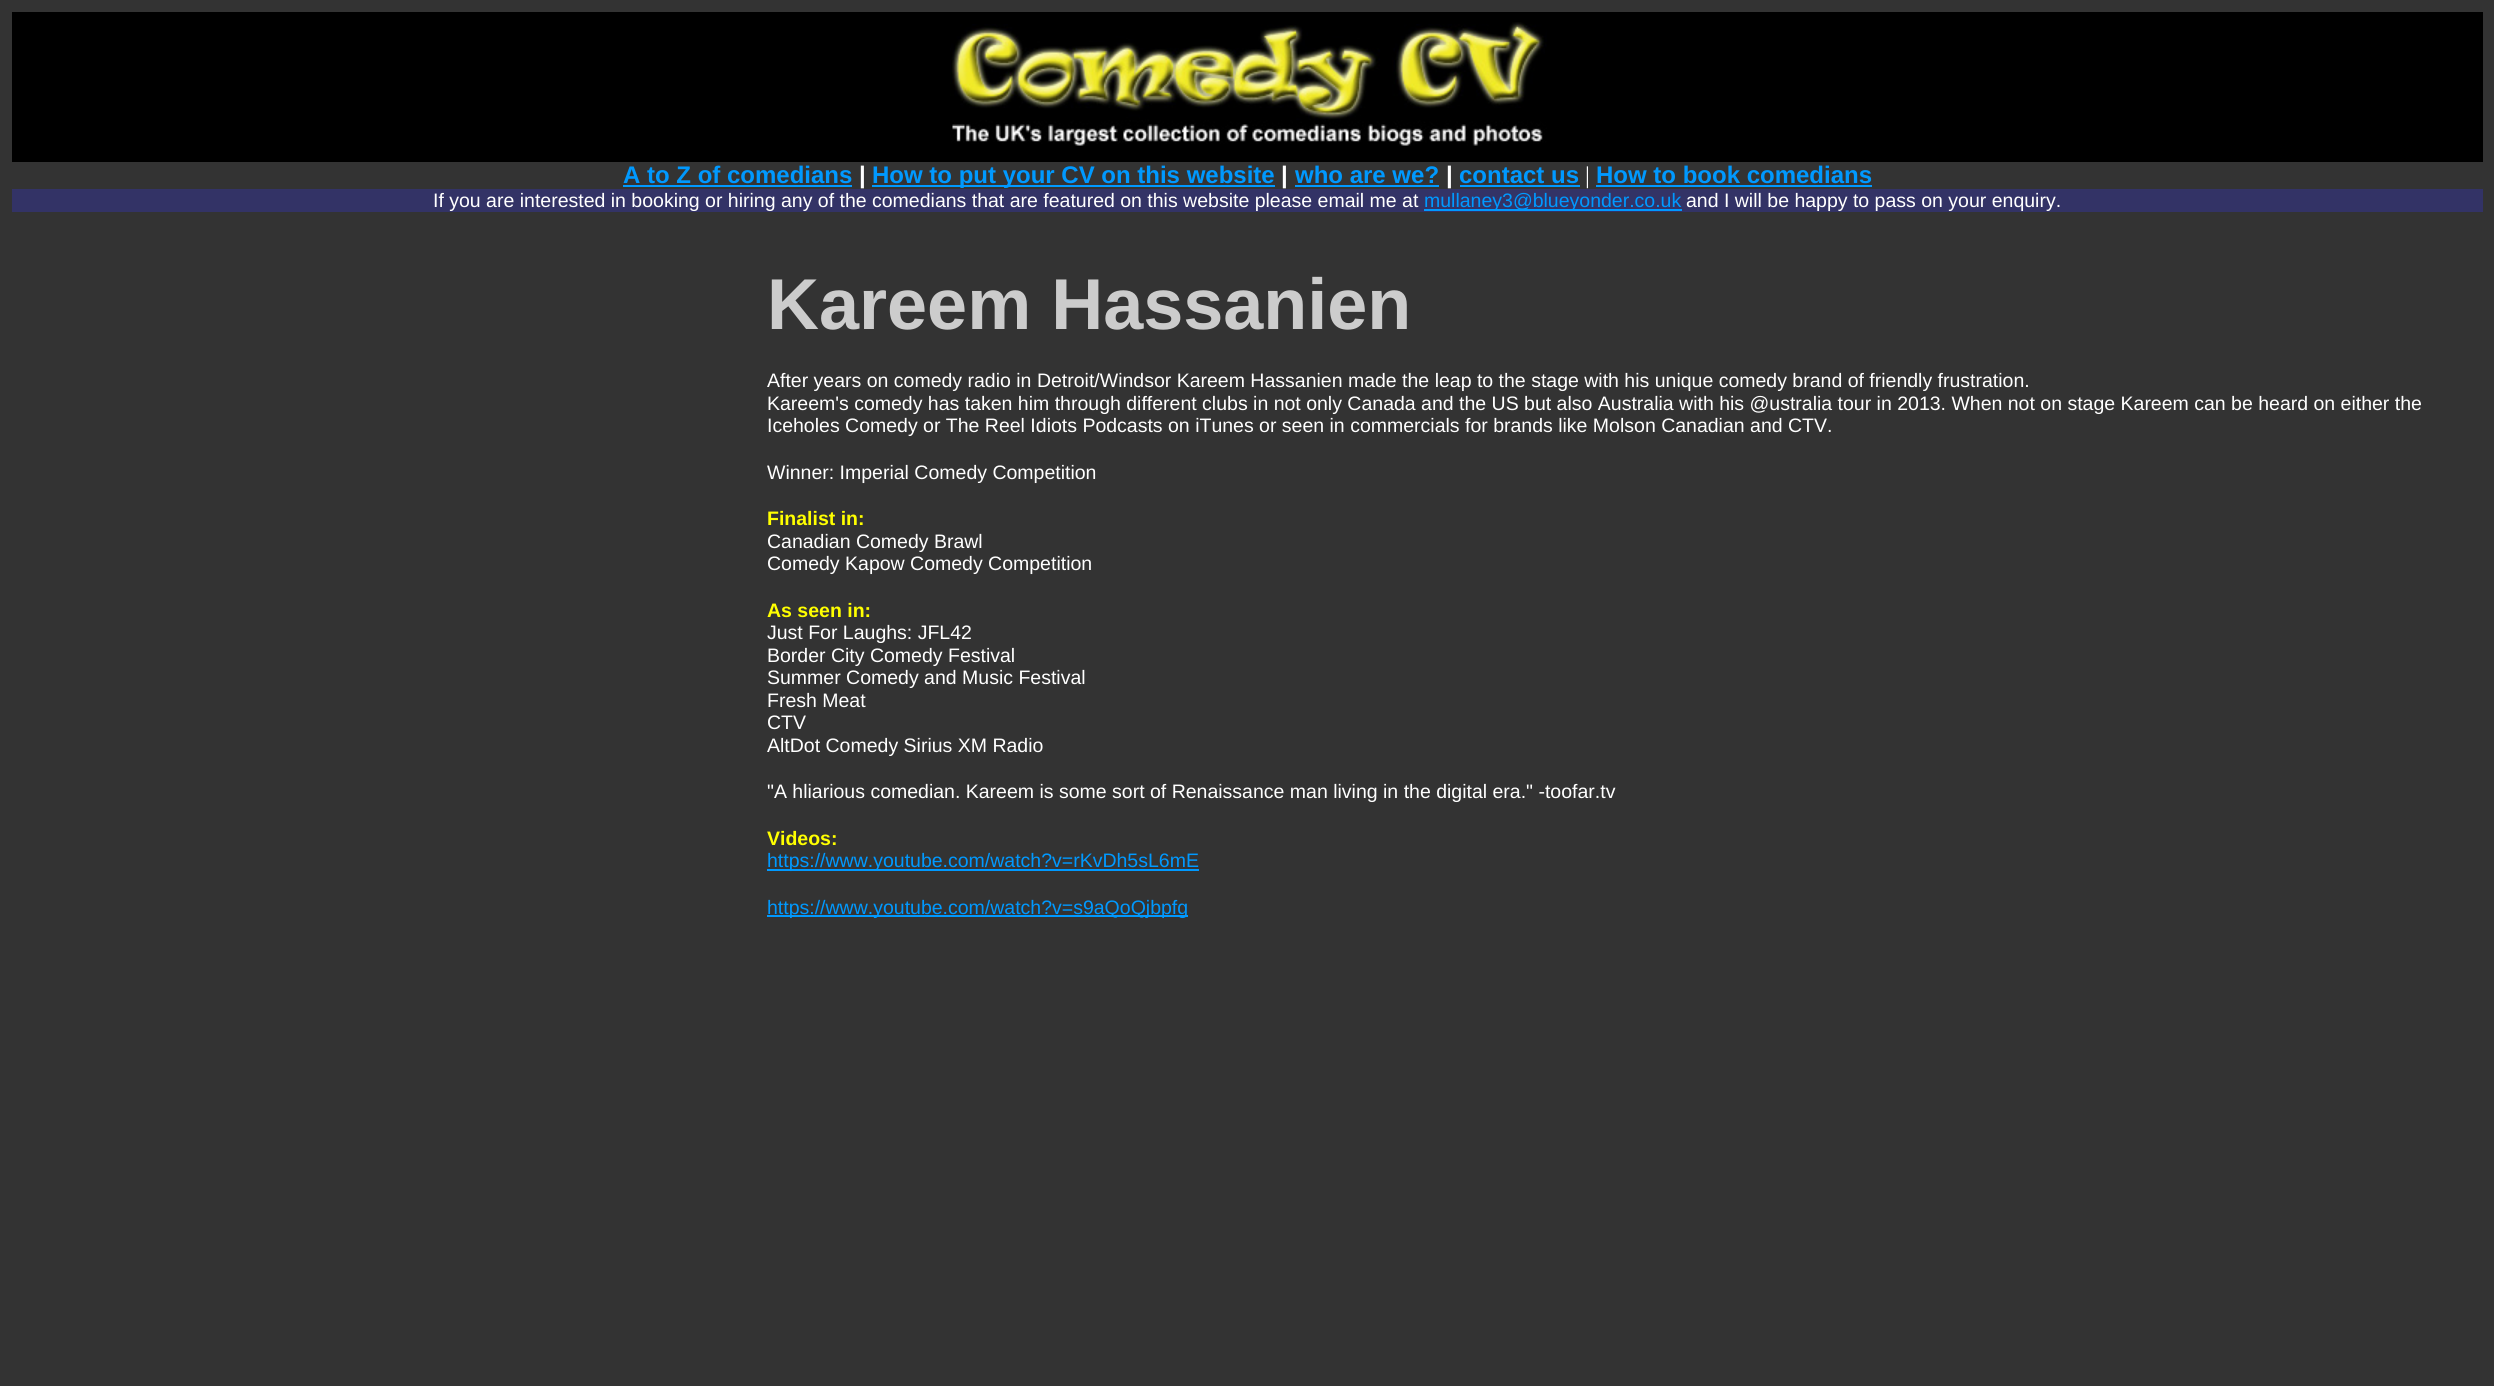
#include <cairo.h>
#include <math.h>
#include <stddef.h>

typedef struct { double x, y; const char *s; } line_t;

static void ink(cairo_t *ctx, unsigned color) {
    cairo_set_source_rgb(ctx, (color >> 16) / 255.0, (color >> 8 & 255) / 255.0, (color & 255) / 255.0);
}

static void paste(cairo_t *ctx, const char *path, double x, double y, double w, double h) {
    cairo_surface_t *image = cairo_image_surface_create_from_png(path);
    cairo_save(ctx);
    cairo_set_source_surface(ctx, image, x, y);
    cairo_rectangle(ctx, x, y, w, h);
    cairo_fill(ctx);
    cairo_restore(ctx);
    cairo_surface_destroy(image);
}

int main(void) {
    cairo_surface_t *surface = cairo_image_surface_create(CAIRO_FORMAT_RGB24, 2494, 1386);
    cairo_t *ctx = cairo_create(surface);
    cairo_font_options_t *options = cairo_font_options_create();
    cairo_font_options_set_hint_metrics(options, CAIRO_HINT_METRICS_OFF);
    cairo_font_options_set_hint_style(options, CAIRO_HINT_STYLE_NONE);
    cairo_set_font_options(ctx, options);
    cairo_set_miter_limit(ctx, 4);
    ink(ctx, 0x333333);
    cairo_paint(ctx);
    ink(ctx, 0x000000);
    cairo_rectangle(ctx, 12, 12, 2471, 150);
    cairo_fill(ctx);
    paste(ctx, "media/1.png", 950, 22, 597, 124);
    cairo_select_font_face(ctx, "Liberation Sans", CAIRO_FONT_SLANT_NORMAL, CAIRO_FONT_WEIGHT_BOLD);
    cairo_set_font_size(ctx, 24);
    ink(ctx, 0x0099FF);
    cairo_move_to(ctx, 623, 183);
    cairo_show_text(ctx, "A to Z of comedians");
    cairo_rectangle(ctx, 623, 185, 229, 2);
    cairo_fill(ctx);
    ink(ctx, 0xFFFFFF);
    cairo_move_to(ctx, 859, 183);
    cairo_show_text(ctx, "|");
    ink(ctx, 0x0099FF);
    cairo_rectangle(ctx, 872, 185, 403, 2);
    cairo_fill(ctx);
    cairo_move_to(ctx, 872, 183);
    cairo_show_text(ctx, "How to put your CV on this website");
    ink(ctx, 0xFFFFFF);
    cairo_move_to(ctx, 1281, 183);
    cairo_show_text(ctx, "|");
    ink(ctx, 0x0099FF);
    cairo_move_to(ctx, 1295, 183);
    cairo_show_text(ctx, "who are we?");
    cairo_rectangle(ctx, 1295, 185, 144, 2);
    cairo_fill(ctx);
    ink(ctx, 0xFFFFFF);
    cairo_move_to(ctx, 1446, 183);
    cairo_show_text(ctx, "|");
    ink(ctx, 0x0099FF);
    cairo_move_to(ctx, 1459, 183);
    cairo_show_text(ctx, "contact us");
    cairo_rectangle(ctx, 1460, 185, 120, 2);
    cairo_fill(ctx);
    cairo_select_font_face(ctx, "Liberation Serif", CAIRO_FONT_SLANT_NORMAL, CAIRO_FONT_WEIGHT_NORMAL);
    ink(ctx, 0xFFFFFF);
    cairo_move_to(ctx, 1585, 183);
    cairo_show_text(ctx, "|");
    cairo_select_font_face(ctx, "Liberation Sans", CAIRO_FONT_SLANT_NORMAL, CAIRO_FONT_WEIGHT_BOLD);
    ink(ctx, 0x0099FF);
    cairo_move_to(ctx, 1596, 183);
    cairo_show_text(ctx, "How to book comedians");
    cairo_rectangle(ctx, 1596, 185, 276, 2);
    cairo_fill(ctx);
    ink(ctx, 0x333366);
    cairo_rectangle(ctx, 12, 189, 2471, 23);
    cairo_fill(ctx);
    cairo_select_font_face(ctx, "Liberation Sans", CAIRO_FONT_SLANT_NORMAL, CAIRO_FONT_WEIGHT_NORMAL);
    cairo_set_font_size(ctx, 19.5);
    ink(ctx, 0xFFFFFF);
    cairo_move_to(ctx, 433, 207);
    cairo_show_text(ctx, "If you are interested in booking or hiring any of the comedians that are featured on this website please email me at");
    ink(ctx, 0x0099FF);
    cairo_rectangle(ctx, 1424, 209, 258, 2);
    cairo_fill(ctx);
    cairo_move_to(ctx, 1424, 207);
    cairo_show_text(ctx, "mullaney3@blueyonder.co.uk");
    ink(ctx, 0xFFFFFF);
    cairo_move_to(ctx, 1686, 207);
    cairo_show_text(ctx, "and I will be happy to pass on your enquiry.");
    cairo_select_font_face(ctx, "Liberation Sans", CAIRO_FONT_SLANT_NORMAL, CAIRO_FONT_WEIGHT_BOLD);
    cairo_set_font_size(ctx, 72);
    ink(ctx, 0xCCCCCC);
    cairo_move_to(ctx, 767, 329);
    cairo_show_text(ctx, "Kareem Hassanien");
    cairo_select_font_face(ctx, "Liberation Sans", CAIRO_FONT_SLANT_NORMAL, CAIRO_FONT_WEIGHT_NORMAL);
    cairo_set_font_size(ctx, 19.5);
    ink(ctx, 0xFFFFFF);
    {
        static const line_t items[] = {
            {767, 387, "After years on comedy radio in Detroit/Windsor Kareem Hassanien made the leap to the stage with his unique comedy brand of friendly frustration."},
            {767, 410, "Kareem's comedy has taken him through different clubs in not only Canada and the US but also Australia with his @ustralia tour in 2013. When not on stage Kareem can be heard on either the"},
            {767, 432, "Iceholes Comedy or The Reel Idiots Podcasts on iTunes or seen in commercials for brands like Molson Canadian and CTV."},
            {767, 479, "Winner: Imperial Comedy Competition"},
        };
        for (size_t i = 0; i < sizeof items / sizeof *items; i++) {
            cairo_move_to(ctx, items[i].x, items[i].y);
            cairo_show_text(ctx, items[i].s);
        }
    }
    cairo_select_font_face(ctx, "Liberation Sans", CAIRO_FONT_SLANT_NORMAL, CAIRO_FONT_WEIGHT_BOLD);
    ink(ctx, 0xFFFF00);
    cairo_move_to(ctx, 767, 525);
    cairo_show_text(ctx, "Finalist in:");
    cairo_select_font_face(ctx, "Liberation Sans", CAIRO_FONT_SLANT_NORMAL, CAIRO_FONT_WEIGHT_NORMAL);
    ink(ctx, 0xFFFFFF);
    cairo_move_to(ctx, 767, 548);
    cairo_show_text(ctx, "Canadian Comedy Brawl");
    cairo_move_to(ctx, 767, 570);
    cairo_show_text(ctx, "Comedy Kapow Comedy Competition");
    cairo_select_font_face(ctx, "Liberation Sans", CAIRO_FONT_SLANT_NORMAL, CAIRO_FONT_WEIGHT_BOLD);
    ink(ctx, 0xFFFF00);
    cairo_move_to(ctx, 767, 617);
    cairo_show_text(ctx, "As seen in:");
    cairo_select_font_face(ctx, "Liberation Sans", CAIRO_FONT_SLANT_NORMAL, CAIRO_FONT_WEIGHT_NORMAL);
    ink(ctx, 0xFFFFFF);
    {
        static const line_t items[] = {
            {767, 639, "Just For Laughs: JFL42"},
            {767, 662, "Border City Comedy Festival"},
            {767, 684, "Summer Comedy and Music Festival"},
            {767, 707, "Fresh Meat"},
            {767, 729, "CTV"},
            {767, 752, "AltDot Comedy Sirius XM Radio"},
            {767, 798, "\"A hliarious comedian. Kareem is some sort of Renaissance man living in the digital era.\" -toofar.tv"},
        };
        for (size_t i = 0; i < sizeof items / sizeof *items; i++) {
            cairo_move_to(ctx, items[i].x, items[i].y);
            cairo_show_text(ctx, items[i].s);
        }
    }
    cairo_select_font_face(ctx, "Liberation Sans", CAIRO_FONT_SLANT_NORMAL, CAIRO_FONT_WEIGHT_BOLD);
    ink(ctx, 0xFFFF00);
    cairo_move_to(ctx, 767, 845);
    cairo_show_text(ctx, "Videos:");
    ink(ctx, 0x0099FF);
    cairo_rectangle(ctx, 767, 869, 432, 2);
    cairo_fill(ctx);
    cairo_select_font_face(ctx, "Liberation Sans", CAIRO_FONT_SLANT_NORMAL, CAIRO_FONT_WEIGHT_NORMAL);
    cairo_move_to(ctx, 767, 867);
    cairo_show_text(ctx, "https://www.youtube.com/watch?v=rKvDh5sL6mE");
    cairo_rectangle(ctx, 767, 915, 421, 2);
    cairo_fill(ctx);
    cairo_move_to(ctx, 767, 914);
    cairo_show_text(ctx, "https://www.youtube.com/watch?v=s9aQoQjbpfg");
    cairo_surface_write_to_png(surface, "image.png");
    cairo_font_options_destroy(options);
    cairo_destroy(ctx);
    cairo_surface_destroy(surface);
    return 0;
}
